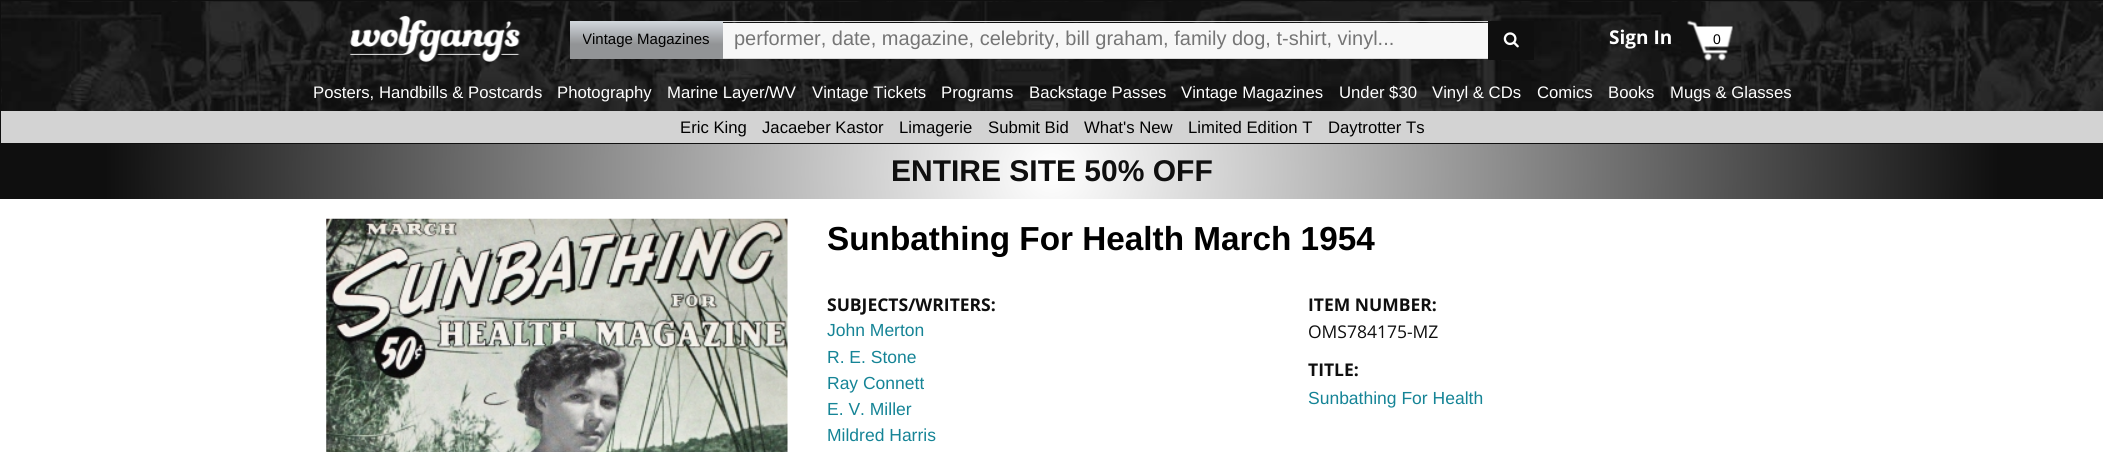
#include <cairo.h>
#include <math.h>
#include <stddef.h>

typedef struct { double x, y; const char *s; } line_t;
typedef struct { double x, y, w, h; unsigned color; } box_t;

static void ink(cairo_t *ctx, unsigned color) {
    cairo_set_source_rgb(ctx, (color >> 16) / 255.0, (color >> 8 & 255) / 255.0, (color & 255) / 255.0);
}

static void paste(cairo_t *ctx, const char *path, double x, double y, double w, double h) {
    cairo_surface_t *image = cairo_image_surface_create_from_png(path);
    cairo_save(ctx);
    cairo_set_source_surface(ctx, image, x, y);
    cairo_rectangle(ctx, x, y, w, h);
    cairo_fill(ctx);
    cairo_restore(ctx);
    cairo_surface_destroy(image);
}

int main(void) {
    cairo_surface_t *surface = cairo_image_surface_create(CAIRO_FORMAT_RGB24, 2103, 452);
    cairo_t *ctx = cairo_create(surface);
    cairo_font_options_t *options = cairo_font_options_create();
    cairo_font_options_set_hint_metrics(options, CAIRO_HINT_METRICS_OFF);
    cairo_font_options_set_hint_style(options, CAIRO_HINT_STYLE_NONE);
    cairo_set_font_options(ctx, options);
    cairo_set_miter_limit(ctx, 4);
    cairo_pattern_t *gradient;
    ink(ctx, 0xFFFFFF);
    cairo_paint(ctx);
    paste(ctx, "media/1.png", 1, 1, 2102, 110);
    cairo_rectangle(ctx, 0.5, 0.5, 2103, 143);
    ink(ctx, 0x0F0F0F);
    cairo_set_line_width(ctx, 1);
    cairo_stroke(ctx);
    paste(ctx, "media/2.png", 350, 15, 171, 47);
    gradient = cairo_pattern_create_linear(646, 21, 646, 59);
    cairo_pattern_add_color_stop_rgba(gradient, 0, 0.824, 0.843, 0.867, 1);
    cairo_pattern_add_color_stop_rgba(gradient, 0.61, 0.573, 0.58, 0.588, 1);
    cairo_set_source(ctx, gradient);
    cairo_pattern_destroy(gradient);
    cairo_rectangle(ctx, 570, 21, 153, 38);
    cairo_fill(ctx);
    cairo_save(ctx);
    cairo_rectangle(ctx, 583, 29, 127, 22);
    cairo_clip(ctx);
    cairo_select_font_face(ctx, "Liberation Sans", CAIRO_FONT_SLANT_NORMAL, CAIRO_FONT_WEIGHT_NORMAL);
    cairo_set_font_size(ctx, 15);
    ink(ctx, 0x000000);
    cairo_move_to(ctx, 582, 44);
    cairo_show_text(ctx, "Vintage Magazines");
    cairo_restore(ctx);
    {
        static const box_t items[] = {
            {723, 23, 765, 35, 0xF7F7F7},
            {723, 21, 765, 1, 0xD7D7D7},
            {723, 58, 765, 1, 0xD7D7D7},
        };
        for (size_t i = 0; i < sizeof items / sizeof *items; i++) {
            ink(ctx, items[i].color);
            cairo_rectangle(ctx, items[i].x, items[i].y, items[i].w, items[i].h);
            cairo_fill(ctx);
        }
    }
    cairo_select_font_face(ctx, "Liberation Sans", CAIRO_FONT_SLANT_NORMAL, CAIRO_FONT_WEIGHT_NORMAL);
    cairo_set_font_size(ctx, 20);
    ink(ctx, 0x757575);
    cairo_move_to(ctx, 734, 45);
    cairo_show_text(ctx, "performer, date, magazine, celebrity, bill graham, family dog, t-shirt, vinyl...");
    ink(ctx, 0x0F0F0F);
    cairo_rectangle(ctx, 1488, 21, 46, 39);
    cairo_fill(ctx);
    paste(ctx, "media/3.png", 1503, 32, 16, 16);
    paste(ctx, "media/4.png", 1687, 20, 46, 41);
    cairo_select_font_face(ctx, "Open Sans", CAIRO_FONT_SLANT_NORMAL, CAIRO_FONT_WEIGHT_BOLD);
    cairo_set_font_size(ctx, 19);
    ink(ctx, 0xFFFFFF);
    cairo_move_to(ctx, 1609, 44);
    cairo_show_text(ctx, "Sign In");
    cairo_select_font_face(ctx, "Liberation Sans", CAIRO_FONT_SLANT_NORMAL, CAIRO_FONT_WEIGHT_NORMAL);
    cairo_set_font_size(ctx, 14);
    ink(ctx, 0x000000);
    cairo_move_to(ctx, 1713, 44);
    cairo_show_text(ctx, "0");
    cairo_set_font_size(ctx, 16.7);
    ink(ctx, 0xFFFFFF);
    {
        static const line_t items[] = {
            {313, 98, "Posters, Handbills & Postcards"},
            {557, 98, "Photography"},
            {667, 98, "Marine Layer/WV"},
            {812, 98, "Vintage Tickets"},
            {941, 98, "Programs"},
            {1029, 98, "Backstage Passes"},
            {1181, 98, "Vintage Magazines"},
            {1339, 98, "Under $30"},
            {1432, 98, "Vinyl & CDs"},
            {1537, 98, "Comics"},
            {1608, 98, "Books"},
            {1670, 98, "Mugs & Glasses"},
        };
        for (size_t i = 0; i < sizeof items / sizeof *items; i++) {
            cairo_move_to(ctx, items[i].x, items[i].y);
            cairo_show_text(ctx, items[i].s);
        }
    }
    ink(ctx, 0xD3D3D3);
    cairo_rectangle(ctx, 1, 111, 2102, 32);
    cairo_fill(ctx);
    ink(ctx, 0x000000);
    {
        static const line_t items[] = {
            {680, 133, "Eric King"},
            {762, 133, "Jacaeber Kastor"},
            {899, 133, "Limagerie"},
            {988, 133, "Submit Bid"},
            {1084, 133, "What's New"},
            {1188, 133, "Limited Edition T"},
            {1328, 133, "Daytrotter Ts"},
        };
        for (size_t i = 0; i < sizeof items / sizeof *items; i++) {
            cairo_move_to(ctx, items[i].x, items[i].y);
            cairo_show_text(ctx, items[i].s);
        }
    }
    gradient = cairo_pattern_create_radial(1052, 171, 0, 1052, 171, 1052);
    cairo_pattern_add_color_stop_rgba(gradient, 0, 1, 1, 1, 1);
    cairo_pattern_add_color_stop_rgba(gradient, 0.9, 0.059, 0.059, 0.059, 1);
    cairo_set_source(ctx, gradient);
    cairo_pattern_destroy(gradient);
    cairo_rectangle(ctx, 0, 144, 2103, 55);
    cairo_fill(ctx);
    cairo_select_font_face(ctx, "Liberation Sans", CAIRO_FONT_SLANT_NORMAL, CAIRO_FONT_WEIGHT_BOLD);
    cairo_set_font_size(ctx, 30);
    ink(ctx, 0x0F0F0F);
    cairo_move_to(ctx, 891, 181);
    cairo_show_text(ctx, "ENTIRE SITE 50% OFF");
    paste(ctx, "media/5.png", 326, 218, 462, 234);
    cairo_set_font_size(ctx, 33.3);
    ink(ctx, 0x000000);
    cairo_move_to(ctx, 827, 250);
    cairo_show_text(ctx, "Sunbathing For Health March 1954");
    cairo_select_font_face(ctx, "Open Sans", CAIRO_FONT_SLANT_NORMAL, CAIRO_FONT_WEIGHT_BOLD);
    cairo_set_font_size(ctx, 17.5);
    ink(ctx, 0x0F0F0F);
    cairo_move_to(ctx, 827, 311);
    cairo_show_text(ctx, "SUBJECTS/WRITERS:");
    cairo_select_font_face(ctx, "Liberation Sans", CAIRO_FONT_SLANT_NORMAL, CAIRO_FONT_WEIGHT_NORMAL);
    ink(ctx, 0x158496);
    {
        static const line_t items[] = {
            {827, 336, "John Merton"},
            {827, 363, "R. E. Stone"},
            {827, 389, "Ray Connett"},
            {827, 415, "E. V. Miller"},
            {827, 441, "Mildred Harris"},
        };
        for (size_t i = 0; i < sizeof items / sizeof *items; i++) {
            cairo_move_to(ctx, items[i].x, items[i].y);
            cairo_show_text(ctx, items[i].s);
        }
    }
    cairo_select_font_face(ctx, "Open Sans", CAIRO_FONT_SLANT_NORMAL, CAIRO_FONT_WEIGHT_BOLD);
    ink(ctx, 0x0F0F0F);
    cairo_move_to(ctx, 1308, 311);
    cairo_show_text(ctx, "ITEM NUMBER:");
    cairo_select_font_face(ctx, "Open Sans", CAIRO_FONT_SLANT_NORMAL, CAIRO_FONT_WEIGHT_NORMAL);
    cairo_move_to(ctx, 1308, 338);
    cairo_show_text(ctx, "OMS784175-MZ");
    cairo_select_font_face(ctx, "Open Sans", CAIRO_FONT_SLANT_NORMAL, CAIRO_FONT_WEIGHT_BOLD);
    cairo_move_to(ctx, 1308, 376);
    cairo_show_text(ctx, "TITLE:");
    cairo_select_font_face(ctx, "Liberation Sans", CAIRO_FONT_SLANT_NORMAL, CAIRO_FONT_WEIGHT_NORMAL);
    ink(ctx, 0x158496);
    cairo_move_to(ctx, 1308, 404);
    cairo_show_text(ctx, "Sunbathing For Health");
    cairo_surface_write_to_png(surface, "image.png");
    cairo_font_options_destroy(options);
    cairo_destroy(ctx);
    cairo_surface_destroy(surface);
    return 0;
}
